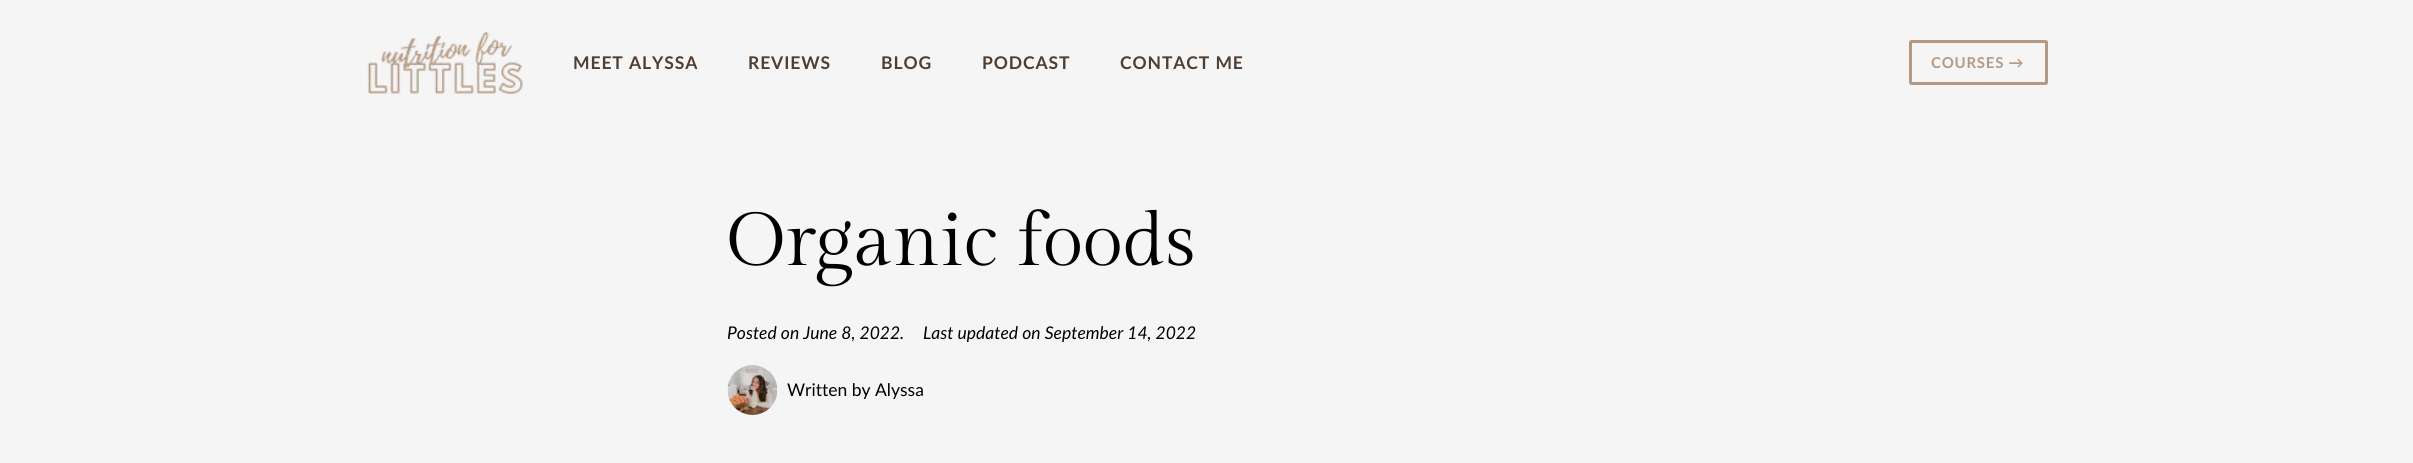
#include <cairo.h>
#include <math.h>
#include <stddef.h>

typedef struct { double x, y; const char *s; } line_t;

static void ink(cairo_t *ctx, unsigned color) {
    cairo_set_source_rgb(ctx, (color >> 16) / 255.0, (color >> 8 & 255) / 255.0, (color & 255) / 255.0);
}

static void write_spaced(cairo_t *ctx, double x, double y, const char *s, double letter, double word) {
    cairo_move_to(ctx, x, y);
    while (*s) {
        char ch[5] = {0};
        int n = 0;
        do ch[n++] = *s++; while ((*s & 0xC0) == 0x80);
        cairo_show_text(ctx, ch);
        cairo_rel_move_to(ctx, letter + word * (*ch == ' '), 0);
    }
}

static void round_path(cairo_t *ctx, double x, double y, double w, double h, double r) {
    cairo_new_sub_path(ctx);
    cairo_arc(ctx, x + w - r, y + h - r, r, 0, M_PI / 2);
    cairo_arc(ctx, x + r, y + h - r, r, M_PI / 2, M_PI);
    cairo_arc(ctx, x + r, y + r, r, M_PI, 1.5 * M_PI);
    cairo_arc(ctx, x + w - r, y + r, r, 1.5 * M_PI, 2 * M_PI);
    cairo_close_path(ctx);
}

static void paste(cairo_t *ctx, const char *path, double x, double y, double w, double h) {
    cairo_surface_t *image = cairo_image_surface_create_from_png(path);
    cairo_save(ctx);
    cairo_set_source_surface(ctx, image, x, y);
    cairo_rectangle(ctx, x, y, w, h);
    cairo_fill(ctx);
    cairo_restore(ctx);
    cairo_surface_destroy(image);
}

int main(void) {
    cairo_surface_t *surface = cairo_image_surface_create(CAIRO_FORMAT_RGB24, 2413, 463);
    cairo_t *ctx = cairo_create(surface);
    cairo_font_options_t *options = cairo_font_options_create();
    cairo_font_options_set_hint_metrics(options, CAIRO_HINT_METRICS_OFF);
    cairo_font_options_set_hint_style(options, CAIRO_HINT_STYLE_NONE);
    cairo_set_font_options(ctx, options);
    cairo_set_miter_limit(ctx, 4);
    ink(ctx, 0xF5F5F5);
    cairo_paint(ctx);
    paste(ctx, "media/1.png", 367, 31, 156, 63);
    cairo_select_font_face(ctx, "Lato", CAIRO_FONT_SLANT_NORMAL, CAIRO_FONT_WEIGHT_BOLD);
    cairo_set_font_size(ctx, 17.5);
    ink(ctx, 0x4F3E31);
    {
        static const line_t items[] = {
            {573, 69, "MEET ALYSSA"},
            {748, 69, "REVIEWS"},
            {881, 69, "BLOG"},
            {982, 69, "PODCAST"},
            {1120, 69, "CONTACT ME"},
        };
        for (size_t i = 0; i < sizeof items / sizeof *items; i++) {
            write_spaced(ctx, items[i].x, items[i].y, items[i].s, 0.9, 0);
        }
    }
    round_path(ctx, 1910.5, 41.5, 136, 42, 1);
    ink(ctx, 0xB49A85);
    cairo_set_line_width(ctx, 3);
    cairo_stroke(ctx);
    cairo_set_font_size(ctx, 15);
    write_spaced(ctx, 1931, 68, "COURSES →", 0.75, 0);
    cairo_select_font_face(ctx, "Gilda Display", CAIRO_FONT_SLANT_NORMAL, CAIRO_FONT_WEIGHT_NORMAL);
    cairo_set_font_size(ctx, 75);
    ink(ctx, 0x000000);
    cairo_move_to(ctx, 727, 265);
    cairo_show_text(ctx, "Organic foods");
    cairo_select_font_face(ctx, "Lato", CAIRO_FONT_SLANT_ITALIC, CAIRO_FONT_WEIGHT_NORMAL);
    cairo_set_font_size(ctx, 17.5);
    cairo_move_to(ctx, 727, 339);
    cairo_show_text(ctx, "Posted on June 8, 2022.");
    cairo_move_to(ctx, 923, 339);
    cairo_show_text(ctx, "Last updated on September 14, 2022");
    paste(ctx, "media/2.png", 727, 365, 51, 50);
    cairo_select_font_face(ctx, "Lato", CAIRO_FONT_SLANT_NORMAL, CAIRO_FONT_WEIGHT_NORMAL);
    cairo_move_to(ctx, 787, 396);
    cairo_show_text(ctx, "Written by Alyssa");
    cairo_surface_write_to_png(surface, "image.png");
    cairo_font_options_destroy(options);
    cairo_destroy(ctx);
    cairo_surface_destroy(surface);
    return 0;
}
